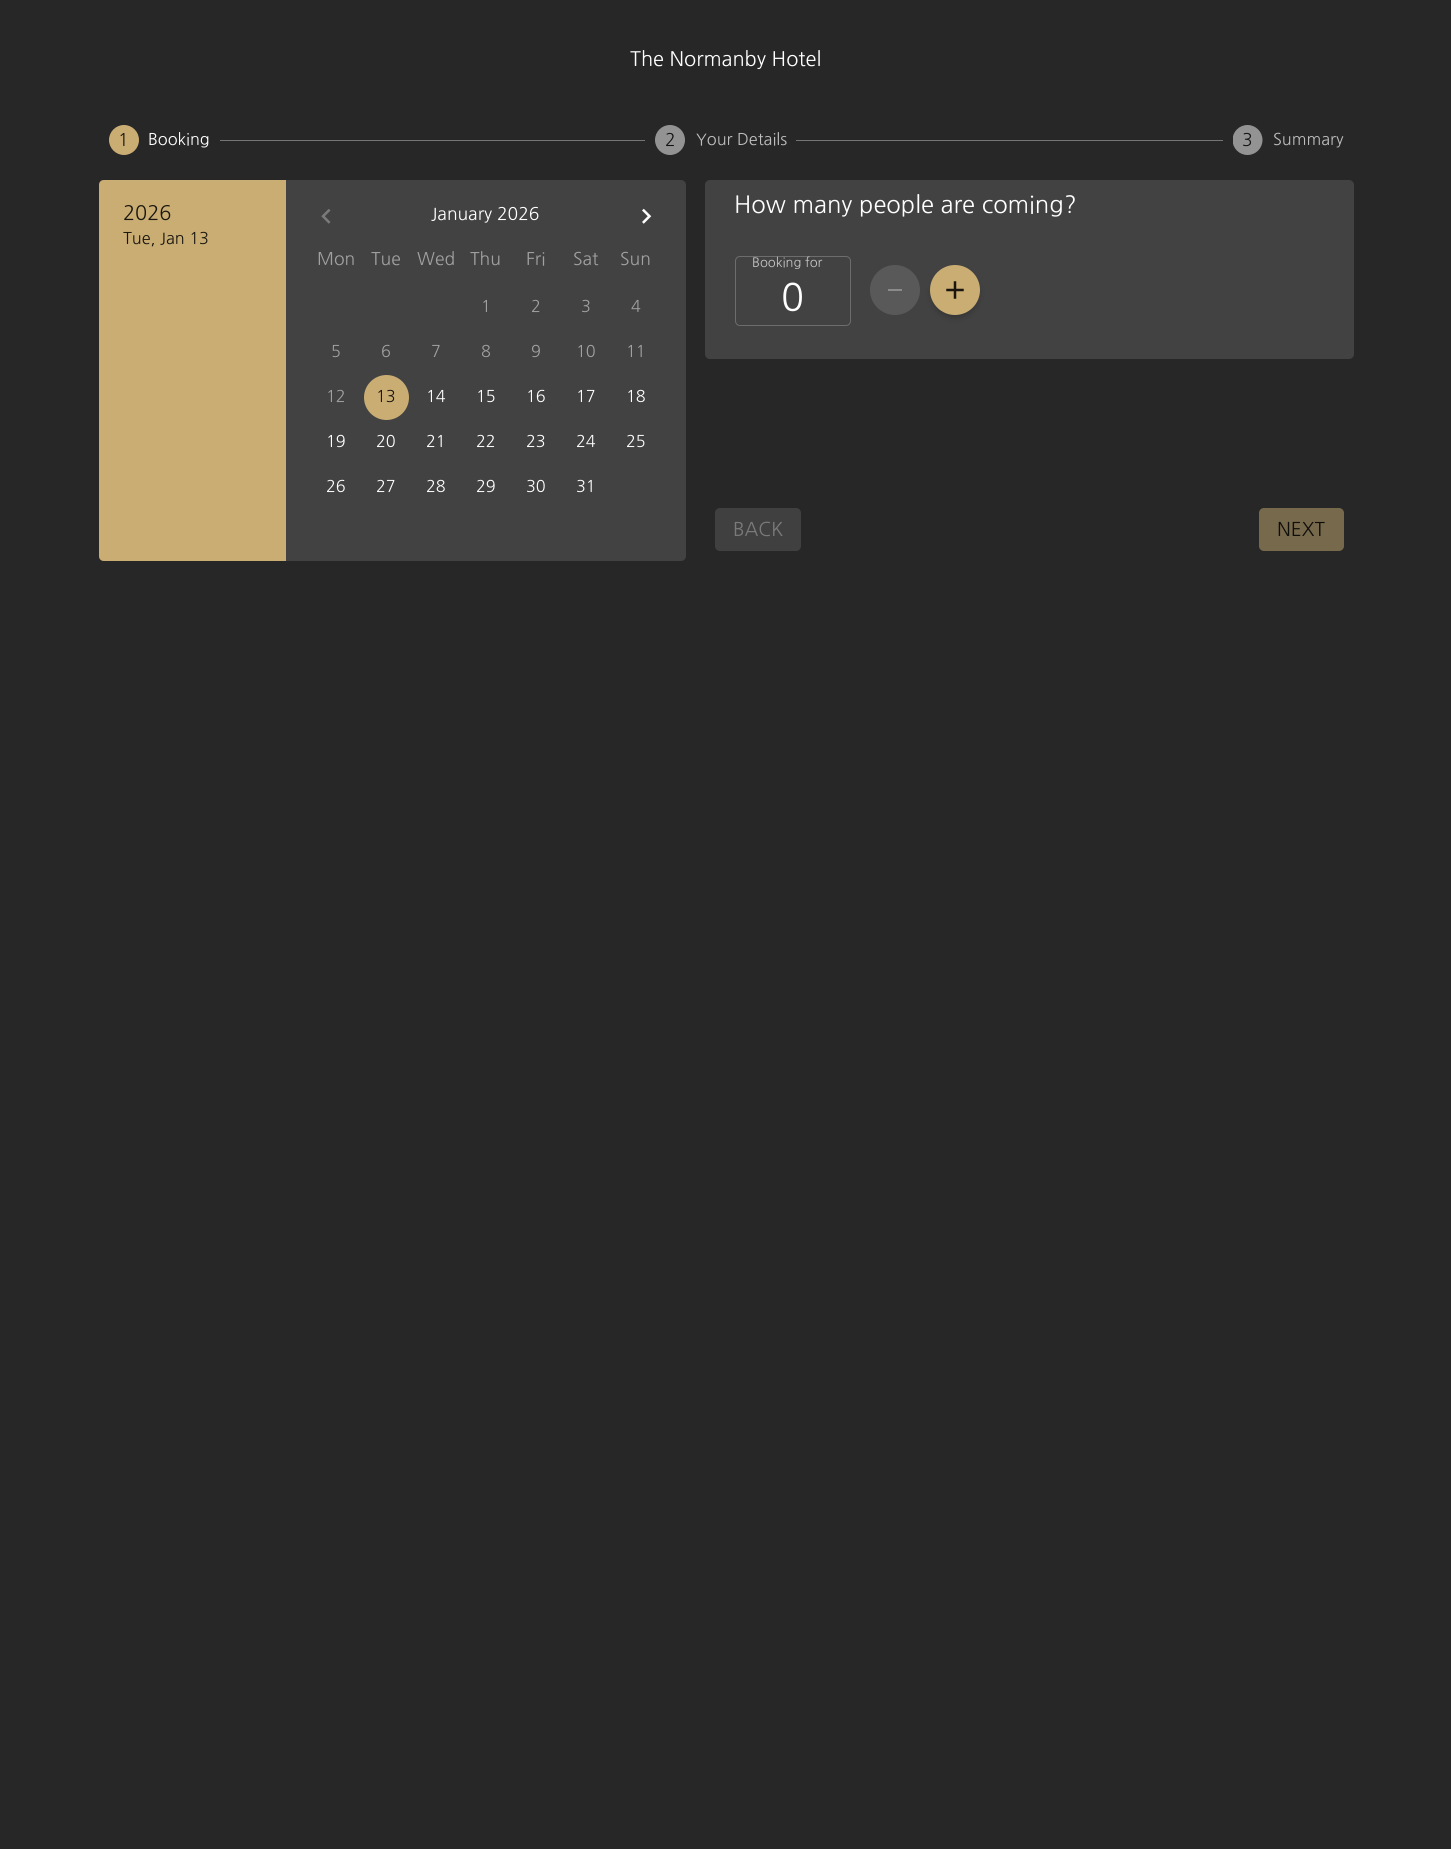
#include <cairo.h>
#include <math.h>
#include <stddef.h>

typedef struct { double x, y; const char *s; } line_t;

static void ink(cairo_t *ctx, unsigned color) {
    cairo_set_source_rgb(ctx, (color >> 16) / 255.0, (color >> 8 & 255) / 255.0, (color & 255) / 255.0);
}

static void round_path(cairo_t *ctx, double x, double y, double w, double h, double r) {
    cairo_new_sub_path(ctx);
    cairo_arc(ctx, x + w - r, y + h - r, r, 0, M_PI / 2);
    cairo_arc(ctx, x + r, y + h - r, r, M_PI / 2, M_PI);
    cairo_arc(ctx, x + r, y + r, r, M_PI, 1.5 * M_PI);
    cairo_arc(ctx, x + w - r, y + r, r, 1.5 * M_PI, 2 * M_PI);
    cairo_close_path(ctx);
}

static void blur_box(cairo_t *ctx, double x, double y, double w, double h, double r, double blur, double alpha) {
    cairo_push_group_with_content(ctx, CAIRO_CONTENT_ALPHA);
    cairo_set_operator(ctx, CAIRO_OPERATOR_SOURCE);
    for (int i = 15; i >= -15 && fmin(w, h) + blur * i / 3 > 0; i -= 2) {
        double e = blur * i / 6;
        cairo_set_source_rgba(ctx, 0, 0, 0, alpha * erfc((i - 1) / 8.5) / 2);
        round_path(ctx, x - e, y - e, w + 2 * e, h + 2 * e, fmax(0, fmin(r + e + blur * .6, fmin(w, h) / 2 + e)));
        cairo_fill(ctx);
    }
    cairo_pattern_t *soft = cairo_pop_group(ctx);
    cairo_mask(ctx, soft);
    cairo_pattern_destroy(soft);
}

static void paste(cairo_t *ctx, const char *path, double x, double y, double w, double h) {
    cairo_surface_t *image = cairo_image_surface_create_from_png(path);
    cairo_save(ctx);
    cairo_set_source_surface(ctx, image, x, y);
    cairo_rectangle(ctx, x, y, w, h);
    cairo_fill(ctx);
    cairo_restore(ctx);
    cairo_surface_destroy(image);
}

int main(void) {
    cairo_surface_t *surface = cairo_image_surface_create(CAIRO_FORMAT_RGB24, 1451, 1849);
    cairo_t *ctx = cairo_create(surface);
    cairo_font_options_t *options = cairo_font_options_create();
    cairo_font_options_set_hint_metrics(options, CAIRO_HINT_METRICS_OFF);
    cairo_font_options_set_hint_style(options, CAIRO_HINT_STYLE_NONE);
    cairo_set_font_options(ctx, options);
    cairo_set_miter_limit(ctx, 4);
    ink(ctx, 0x272727);
    cairo_paint(ctx);
    cairo_select_font_face(ctx, "NanumGothic", CAIRO_FONT_SLANT_NORMAL, CAIRO_FONT_WEIGHT_NORMAL);
    cairo_set_font_size(ctx, 20);
    ink(ctx, 0xFFFFFF);
    cairo_move_to(ctx, 630, 66);
    cairo_show_text(ctx, "The Normanby Hotel");
    ink(ctx, 0xC9AD73);
    cairo_new_path(ctx);
    cairo_arc(ctx, 124, 140, 15, 0, 2 * M_PI);
    cairo_fill(ctx);
    cairo_set_font_size(ctx, 17.5);
    ink(ctx, 0x1A160F);
    cairo_move_to(ctx, 118, 146);
    cairo_show_text(ctx, "1");
    cairo_set_font_size(ctx, 16.25);
    ink(ctx, 0xFFFFFF);
    cairo_move_to(ctx, 148, 145);
    cairo_show_text(ctx, "Booking");
    ink(ctx, 0x757575);
    cairo_rectangle(ctx, 220, 140, 425, 1);
    cairo_fill(ctx);
    ink(ctx, 0x939393);
    cairo_arc(ctx, 670, 140, 15, 0, 2 * M_PI);
    cairo_fill(ctx);
    cairo_set_font_size(ctx, 17.5);
    ink(ctx, 0x131313);
    cairo_move_to(ctx, 665, 146);
    cairo_show_text(ctx, "2");
    cairo_set_font_size(ctx, 16.25);
    ink(ctx, 0xBEBEBE);
    cairo_move_to(ctx, 696, 145);
    cairo_show_text(ctx, "Your Details");
    ink(ctx, 0x757575);
    cairo_rectangle(ctx, 796, 140, 427, 1);
    cairo_fill(ctx);
    cairo_save(ctx);
    cairo_rectangle(ctx, 1233, 125, 30, 30);
    cairo_clip(ctx);
    ink(ctx, 0x939393);
    cairo_arc(ctx, 1247.5, 140, 15, 0, 2 * M_PI);
    cairo_fill(ctx);
    cairo_restore(ctx);
    cairo_set_font_size(ctx, 17.5);
    ink(ctx, 0x131313);
    cairo_move_to(ctx, 1242, 146);
    cairo_show_text(ctx, "3");
    cairo_set_font_size(ctx, 16.25);
    ink(ctx, 0xBEBEBE);
    cairo_move_to(ctx, 1273, 145);
    cairo_show_text(ctx, "Summary");
    ink(ctx, 0x424242);
    round_path(ctx, 99, 180, 587, 381, 5);
    cairo_fill(ctx);
    ink(ctx, 0xC9AD73);
    cairo_new_path(ctx);
    cairo_move_to(ctx, 104, 180);
    cairo_line_to(ctx, 286, 180);
    cairo_line_to(ctx, 286, 561);
    cairo_line_to(ctx, 104, 561);
    cairo_curve_to(ctx, 101, 561, 99, 559, 99, 556);
    cairo_line_to(ctx, 99, 185);
    cairo_curve_to(ctx, 99, 182, 101, 180, 104, 180);
    cairo_close_path(ctx);
    cairo_fill(ctx);
    cairo_set_font_size(ctx, 20);
    ink(ctx, 0x1A160F);
    cairo_move_to(ctx, 123, 220);
    cairo_show_text(ctx, "2026");
    cairo_set_font_size(ctx, 16.25);
    cairo_move_to(ctx, 123, 244);
    cairo_show_text(ctx, "Tue, Jan 13");
    paste(ctx, "media/1.png", 321, 209, 10, 15);
    cairo_set_font_size(ctx, 17.5);
    ink(ctx, 0xFFFFFF);
    cairo_move_to(ctx, 431, 220);
    cairo_show_text(ctx, "January 2026");
    paste(ctx, "media/2.png", 642, 208, 10, 16);
    ink(ctx, 0xA1A1A1);
    {
        static const line_t items[] = {
            {317, 265, "Mon"},
            {371, 265, "Tue"},
            {417, 265, "Wed"},
            {470, 265, "Thu"},
            {526, 265, "Fri"},
            {573, 265, "Sat"},
            {620, 265, "Sun"},
        };
        for (size_t i = 0; i < sizeof items / sizeof *items; i++) {
            cairo_move_to(ctx, items[i].x, items[i].y);
            cairo_show_text(ctx, items[i].s);
        }
    }
    cairo_set_font_size(ctx, 16.25);
    {
        static const line_t items[] = {
            {481, 312, "1"},
            {531, 312, "2"},
            {581, 312, "3"},
            {631, 312, "4"},
            {331, 357, "5"},
            {381, 357, "6"},
            {431, 357, "7"},
            {481, 357, "8"},
            {531, 357, "9"},
            {576, 357, "10"},
            {626, 357, "11"},
            {326, 402, "12"},
        };
        for (size_t i = 0; i < sizeof items / sizeof *items; i++) {
            cairo_move_to(ctx, items[i].x, items[i].y);
            cairo_show_text(ctx, items[i].s);
        }
    }
    ink(ctx, 0xC9AD73);
    cairo_new_path(ctx);
    cairo_arc(ctx, 386.5, 397.5, 22.5, 0, 2 * M_PI);
    cairo_fill(ctx);
    ink(ctx, 0x1A160F);
    cairo_move_to(ctx, 376, 402);
    cairo_show_text(ctx, "13");
    ink(ctx, 0xFFFFFF);
    {
        static const line_t items[] = {
            {426, 402, "14"},
            {476, 402, "15"},
            {526, 402, "16"},
            {576, 402, "17"},
            {626, 402, "18"},
            {326, 447, "19"},
            {376, 447, "20"},
            {426, 447, "21"},
            {476, 447, "22"},
            {526, 447, "23"},
            {576, 447, "24"},
            {626, 447, "25"},
            {326, 492, "26"},
            {376, 492, "27"},
            {426, 492, "28"},
            {476, 492, "29"},
            {526, 492, "30"},
            {576, 492, "31"},
        };
        for (size_t i = 0; i < sizeof items / sizeof *items; i++) {
            cairo_move_to(ctx, items[i].x, items[i].y);
            cairo_show_text(ctx, items[i].s);
        }
    }
    ink(ctx, 0x424242);
    round_path(ctx, 705, 180, 649, 179, 5);
    cairo_fill(ctx);
    cairo_set_font_size(ctx, 23.75);
    ink(ctx, 0xFFFFFF);
    cairo_move_to(ctx, 734, 213);
    cairo_show_text(ctx, "How many people are coming?");
    round_path(ctx, 735.5, 256.5, 115, 69, 4.5);
    ink(ctx, 0x6D6D6D);
    cairo_set_line_width(ctx, 1);
    cairo_stroke(ctx);
    cairo_set_font_size(ctx, 13);
    ink(ctx, 0xC6C6C6);
    cairo_move_to(ctx, 752, 267);
    cairo_show_text(ctx, "Booking for");
    cairo_set_font_size(ctx, 38);
    ink(ctx, 0xFFFFFF);
    cairo_move_to(ctx, 781, 311);
    cairo_show_text(ctx, "0");
    ink(ctx, 0x595959);
    cairo_new_path(ctx);
    cairo_arc(ctx, 895, 290, 25, 0, 2 * M_PI);
    cairo_fill(ctx);
    ink(ctx, 0x8B8B8B);
    cairo_rectangle(ctx, 888, 289, 14, 2);
    cairo_fill(ctx);
    ink(ctx, 0x000000);
    blur_box(ctx, 931, 270, 48, 48, 24, 3, 0.2);
    ink(ctx, 0xC9AD73);
    cairo_arc(ctx, 955, 290, 25, 0, 2 * M_PI);
    cairo_fill(ctx);
    paste(ctx, "media/3.png", 946, 281, 18, 18);
    cairo_set_source_rgba(ctx, 1, 1, 1, 0.12);
    round_path(ctx, 715, 508, 86, 43, 5);
    cairo_fill(ctx);
    cairo_set_font_size(ctx, 19);
    ink(ctx, 0x7A7A7A);
    cairo_move_to(ctx, 733, 536);
    cairo_show_text(ctx, "BACK");
    cairo_set_source_rgba(ctx, 0.788, 0.678, 0.451, 0.5);
    round_path(ctx, 1259, 508, 85, 43, 5);
    cairo_fill(ctx);
    ink(ctx, 0x100E0A);
    cairo_move_to(ctx, 1277, 536);
    cairo_show_text(ctx, "NEXT");
    cairo_surface_write_to_png(surface, "image.png");
    cairo_font_options_destroy(options);
    cairo_destroy(ctx);
    cairo_surface_destroy(surface);
    return 0;
}
